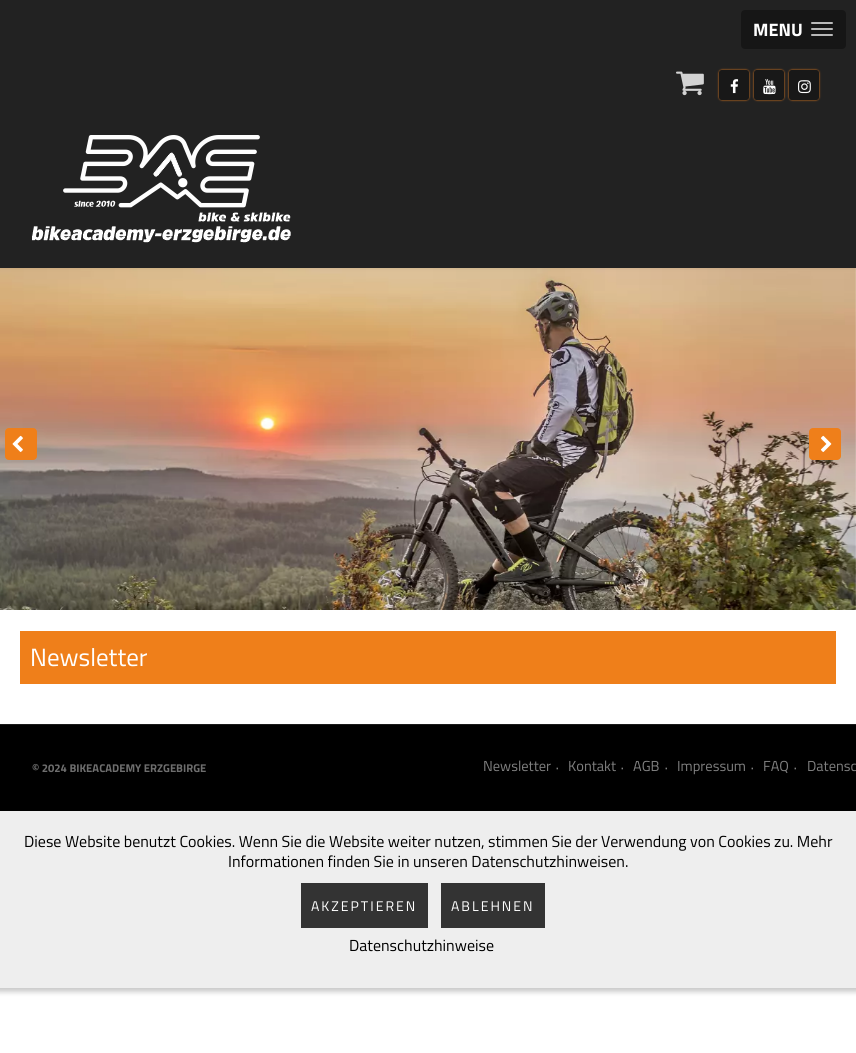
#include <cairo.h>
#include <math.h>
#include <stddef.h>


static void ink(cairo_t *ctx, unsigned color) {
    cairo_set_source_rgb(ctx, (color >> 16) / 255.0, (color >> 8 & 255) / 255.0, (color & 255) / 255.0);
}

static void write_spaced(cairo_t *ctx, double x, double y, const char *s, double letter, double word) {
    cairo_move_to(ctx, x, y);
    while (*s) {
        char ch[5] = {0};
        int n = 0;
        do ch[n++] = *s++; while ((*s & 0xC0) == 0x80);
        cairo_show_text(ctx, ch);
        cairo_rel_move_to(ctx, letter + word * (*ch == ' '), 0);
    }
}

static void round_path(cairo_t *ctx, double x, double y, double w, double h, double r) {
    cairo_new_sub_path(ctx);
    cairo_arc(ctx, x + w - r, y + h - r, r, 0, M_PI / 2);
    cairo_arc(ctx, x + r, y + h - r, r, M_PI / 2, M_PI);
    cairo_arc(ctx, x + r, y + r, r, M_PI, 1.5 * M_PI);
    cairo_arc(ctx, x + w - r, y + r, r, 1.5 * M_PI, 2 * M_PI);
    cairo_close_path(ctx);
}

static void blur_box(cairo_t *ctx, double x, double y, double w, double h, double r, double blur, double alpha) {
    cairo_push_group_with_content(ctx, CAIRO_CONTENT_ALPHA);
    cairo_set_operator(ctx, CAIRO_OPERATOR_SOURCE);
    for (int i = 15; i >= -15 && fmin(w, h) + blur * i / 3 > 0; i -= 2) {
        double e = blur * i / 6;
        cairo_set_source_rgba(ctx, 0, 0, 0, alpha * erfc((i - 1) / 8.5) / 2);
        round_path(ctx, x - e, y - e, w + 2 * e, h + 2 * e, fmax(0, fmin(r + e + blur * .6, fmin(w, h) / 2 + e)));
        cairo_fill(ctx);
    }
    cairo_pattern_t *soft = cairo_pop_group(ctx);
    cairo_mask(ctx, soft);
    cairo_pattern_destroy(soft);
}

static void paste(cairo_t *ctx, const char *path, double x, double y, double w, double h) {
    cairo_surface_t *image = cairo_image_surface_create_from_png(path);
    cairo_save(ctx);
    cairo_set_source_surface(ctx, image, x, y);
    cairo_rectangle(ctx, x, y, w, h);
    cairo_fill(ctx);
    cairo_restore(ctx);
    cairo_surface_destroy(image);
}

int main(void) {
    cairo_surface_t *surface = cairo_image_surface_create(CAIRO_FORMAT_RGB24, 856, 1053);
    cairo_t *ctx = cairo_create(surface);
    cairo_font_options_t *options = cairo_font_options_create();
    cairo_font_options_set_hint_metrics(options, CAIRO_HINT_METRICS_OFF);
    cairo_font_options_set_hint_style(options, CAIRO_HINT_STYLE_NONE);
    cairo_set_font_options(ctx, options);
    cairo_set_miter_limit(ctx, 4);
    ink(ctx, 0xFFFFFF);
    cairo_paint(ctx);
    paste(ctx, "media/6.png", 0, 268, 856, 342);
    ink(ctx, 0x000000);
    blur_box(ctx, 0, 110, 856, 158, 0, 2, 0.1);
    ink(ctx, 0x222222);
    cairo_rectangle(ctx, 0, 0, 856, 268);
    cairo_fill(ctx);
    paste(ctx, "media/1.png", 32, 135, 259, 108);
    paste(ctx, "media/2.png", 676, 71, 28, 25);
    cairo_save(ctx);
    cairo_set_fill_rule(ctx, CAIRO_FILL_RULE_EVEN_ODD);
    cairo_new_path(ctx);
    cairo_move_to(ctx, 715, 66);
    cairo_line_to(ctx, 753, 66);
    cairo_line_to(ctx, 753, 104);
    cairo_line_to(ctx, 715, 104);
    cairo_close_path(ctx);
    cairo_move_to(ctx, 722, 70);
    cairo_line_to(ctx, 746, 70);
    cairo_curve_to(ctx, 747.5, 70, 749, 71.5, 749, 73);
    cairo_line_to(ctx, 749, 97);
    cairo_curve_to(ctx, 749, 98.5, 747.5, 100, 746, 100);
    cairo_line_to(ctx, 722, 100);
    cairo_curve_to(ctx, 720.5, 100, 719, 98.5, 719, 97);
    cairo_line_to(ctx, 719, 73);
    cairo_curve_to(ctx, 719, 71.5, 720.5, 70, 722, 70);
    cairo_close_path(ctx);
    cairo_clip(ctx);
    ink(ctx, 0xEF7F1A);
    blur_box(ctx, 719, 70, 30, 30, 3, 1, 1);
    cairo_restore(ctx);
    cairo_set_source_rgba(ctx, 0, 0, 0, 0.3);
    round_path(ctx, 719, 70, 30, 30, 3);
    cairo_fill(ctx);
    paste(ctx, "media/3.png", 730, 79, 9, 15);
    cairo_save(ctx);
    cairo_set_fill_rule(ctx, CAIRO_FILL_RULE_EVEN_ODD);
    cairo_new_path(ctx);
    cairo_move_to(ctx, 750, 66);
    cairo_line_to(ctx, 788, 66);
    cairo_line_to(ctx, 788, 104);
    cairo_line_to(ctx, 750, 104);
    cairo_close_path(ctx);
    cairo_move_to(ctx, 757, 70);
    cairo_line_to(ctx, 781, 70);
    cairo_curve_to(ctx, 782.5, 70, 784, 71.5, 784, 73);
    cairo_line_to(ctx, 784, 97);
    cairo_curve_to(ctx, 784, 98.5, 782.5, 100, 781, 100);
    cairo_line_to(ctx, 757, 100);
    cairo_curve_to(ctx, 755.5, 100, 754, 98.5, 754, 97);
    cairo_line_to(ctx, 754, 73);
    cairo_curve_to(ctx, 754, 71.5, 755.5, 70, 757, 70);
    cairo_close_path(ctx);
    cairo_clip(ctx);
    ink(ctx, 0xEF7F1A);
    blur_box(ctx, 754, 70, 30, 30, 3, 1, 1);
    cairo_restore(ctx);
    round_path(ctx, 754, 70, 30, 30, 3);
    cairo_fill(ctx);
    paste(ctx, "media/4.png", 763, 79, 13, 16);
    cairo_save(ctx);
    cairo_set_fill_rule(ctx, CAIRO_FILL_RULE_EVEN_ODD);
    cairo_new_path(ctx);
    cairo_move_to(ctx, 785, 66);
    cairo_line_to(ctx, 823, 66);
    cairo_line_to(ctx, 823, 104);
    cairo_line_to(ctx, 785, 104);
    cairo_close_path(ctx);
    cairo_move_to(ctx, 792, 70);
    cairo_line_to(ctx, 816, 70);
    cairo_curve_to(ctx, 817.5, 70, 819, 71.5, 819, 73);
    cairo_line_to(ctx, 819, 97);
    cairo_curve_to(ctx, 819, 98.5, 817.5, 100, 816, 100);
    cairo_line_to(ctx, 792, 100);
    cairo_curve_to(ctx, 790.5, 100, 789, 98.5, 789, 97);
    cairo_line_to(ctx, 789, 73);
    cairo_curve_to(ctx, 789, 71.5, 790.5, 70, 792, 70);
    cairo_close_path(ctx);
    cairo_clip(ctx);
    ink(ctx, 0xEF7F1A);
    blur_box(ctx, 789, 70, 30, 30, 3, 1, 1);
    cairo_restore(ctx);
    round_path(ctx, 789, 70, 30, 30, 3);
    cairo_fill(ctx);
    paste(ctx, "media/5.png", 798, 80, 13, 14);
    ink(ctx, 0x161616);
    round_path(ctx, 741, 10, 105, 39, 4);
    cairo_fill(ctx);
    cairo_select_font_face(ctx, "Titillium Web", CAIRO_FONT_SLANT_NORMAL, CAIRO_FONT_WEIGHT_BOLD);
    cairo_set_font_size(ctx, 18);
    ink(ctx, 0xFFFFFF);
    cairo_move_to(ctx, 753, 36);
    cairo_show_text(ctx, "MENU");
    ink(ctx, 0xB9B9B9);
    round_path(ctx, 811, 22, 22, 2, 1);
    cairo_fill(ctx);
    round_path(ctx, 811, 28, 22, 2, 1);
    cairo_fill(ctx);
    round_path(ctx, 811, 34, 22, 2, 1);
    cairo_fill(ctx);
    ink(ctx, 0xEF7F1A);
    round_path(ctx, 5, 428, 32, 32, 4);
    cairo_fill(ctx);
    paste(ctx, "media/7.png", 12, 435, 11, 17);
    round_path(ctx, 809, 428, 32, 32, 4);
    cairo_fill(ctx);
    paste(ctx, "media/8.png", 820, 435, 12, 17);
    cairo_rectangle(ctx, 20, 631, 816, 53);
    cairo_fill(ctx);
    cairo_select_font_face(ctx, "Titillium Web", CAIRO_FONT_SLANT_NORMAL, CAIRO_FONT_WEIGHT_NORMAL);
    cairo_set_font_size(ctx, 25);
    ink(ctx, 0xFFFFFF);
    cairo_move_to(ctx, 30, 666);
    cairo_show_text(ctx, "Newsletter");
    ink(ctx, 0x000000);
    cairo_rectangle(ctx, 0, 725, 856, 86);
    cairo_fill(ctx);
    ink(ctx, 0x1A1A1A);
    cairo_rectangle(ctx, 0, 724, 856, 1);
    cairo_fill(ctx);
    cairo_select_font_face(ctx, "Titillium Web", CAIRO_FONT_SLANT_NORMAL, CAIRO_FONT_WEIGHT_BOLD);
    cairo_set_font_size(ctx, 11.25);
    ink(ctx, 0x6E6E6E);
    cairo_move_to(ctx, 32, 772);
    cairo_show_text(ctx, "© 2024 BIKEACADEMY ERZGEBIRGE");
    cairo_select_font_face(ctx, "Titillium Web", CAIRO_FONT_SLANT_NORMAL, CAIRO_FONT_WEIGHT_NORMAL);
    cairo_set_font_size(ctx, 14.5);
    ink(ctx, 0x808080);
    cairo_move_to(ctx, 483, 771);
    cairo_show_text(ctx, "Newsletter");
    cairo_select_font_face(ctx, "Titillium Web", CAIRO_FONT_SLANT_NORMAL, CAIRO_FONT_WEIGHT_BOLD);
    cairo_set_font_size(ctx, 10);
    cairo_move_to(ctx, 556, 771);
    cairo_show_text(ctx, "·");
    cairo_select_font_face(ctx, "Titillium Web", CAIRO_FONT_SLANT_NORMAL, CAIRO_FONT_WEIGHT_NORMAL);
    cairo_set_font_size(ctx, 14.5);
    cairo_move_to(ctx, 568, 771);
    cairo_show_text(ctx, "Kontakt");
    cairo_select_font_face(ctx, "Titillium Web", CAIRO_FONT_SLANT_NORMAL, CAIRO_FONT_WEIGHT_BOLD);
    cairo_set_font_size(ctx, 10);
    cairo_move_to(ctx, 621, 771);
    cairo_show_text(ctx, "·");
    cairo_select_font_face(ctx, "Titillium Web", CAIRO_FONT_SLANT_NORMAL, CAIRO_FONT_WEIGHT_NORMAL);
    cairo_set_font_size(ctx, 14.5);
    cairo_move_to(ctx, 633, 771);
    cairo_show_text(ctx, "AGB");
    cairo_select_font_face(ctx, "Titillium Web", CAIRO_FONT_SLANT_NORMAL, CAIRO_FONT_WEIGHT_BOLD);
    cairo_set_font_size(ctx, 10);
    cairo_move_to(ctx, 665, 771);
    cairo_show_text(ctx, "·");
    cairo_select_font_face(ctx, "Titillium Web", CAIRO_FONT_SLANT_NORMAL, CAIRO_FONT_WEIGHT_NORMAL);
    cairo_set_font_size(ctx, 14.5);
    cairo_move_to(ctx, 677, 771);
    cairo_show_text(ctx, "Impressum");
    cairo_select_font_face(ctx, "Titillium Web", CAIRO_FONT_SLANT_NORMAL, CAIRO_FONT_WEIGHT_BOLD);
    cairo_set_font_size(ctx, 10);
    cairo_move_to(ctx, 751, 771);
    cairo_show_text(ctx, "·");
    cairo_select_font_face(ctx, "Titillium Web", CAIRO_FONT_SLANT_NORMAL, CAIRO_FONT_WEIGHT_NORMAL);
    cairo_set_font_size(ctx, 14.5);
    cairo_move_to(ctx, 763, 771);
    cairo_show_text(ctx, "FAQ");
    cairo_select_font_face(ctx, "Titillium Web", CAIRO_FONT_SLANT_NORMAL, CAIRO_FONT_WEIGHT_BOLD);
    cairo_set_font_size(ctx, 10);
    cairo_move_to(ctx, 794, 771);
    cairo_show_text(ctx, "·");
    cairo_select_font_face(ctx, "Titillium Web", CAIRO_FONT_SLANT_NORMAL, CAIRO_FONT_WEIGHT_NORMAL);
    cairo_set_font_size(ctx, 14.5);
    cairo_move_to(ctx, 807, 771);
    cairo_show_text(ctx, "Datensc");
    ink(ctx, 0x000000);
    blur_box(ctx, -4, 807, 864, 185, 0, 2.5, 0.21);
    ink(ctx, 0xEEEEEE);
    cairo_rectangle(ctx, 0, 811, 856, 177);
    cairo_fill(ctx);
    cairo_set_font_size(ctx, 16);
    ink(ctx, 0x000000);
    cairo_move_to(ctx, 24, 847);
    cairo_show_text(ctx, "Diese Website benutzt Cookies. Wenn Sie die Website weiter nutzen, stimmen Sie der Verwendung von Cookies zu. Mehr");
    cairo_move_to(ctx, 228, 867);
    cairo_show_text(ctx, "Informationen finden Sie in unseren Datenschutzhinweisen.");
    ink(ctx, 0x333333);
    cairo_rectangle(ctx, 301, 883, 127, 45);
    cairo_fill(ctx);
    cairo_set_font_size(ctx, 14);
    ink(ctx, 0xFFFFFF);
    write_spaced(ctx, 311, 911, "AKZEPTIEREN", 2, 0);
    ink(ctx, 0x333333);
    cairo_rectangle(ctx, 441, 883, 104, 45);
    cairo_fill(ctx);
    ink(ctx, 0xFFFFFF);
    write_spaced(ctx, 451, 911, "ABLEHNEN", 2, 0);
    cairo_set_font_size(ctx, 16);
    ink(ctx, 0x000000);
    cairo_move_to(ctx, 349, 951);
    cairo_show_text(ctx, "Datenschutzhinweise");
    cairo_surface_write_to_png(surface, "image.png");
    cairo_font_options_destroy(options);
    cairo_destroy(ctx);
    cairo_surface_destroy(surface);
    return 0;
}
